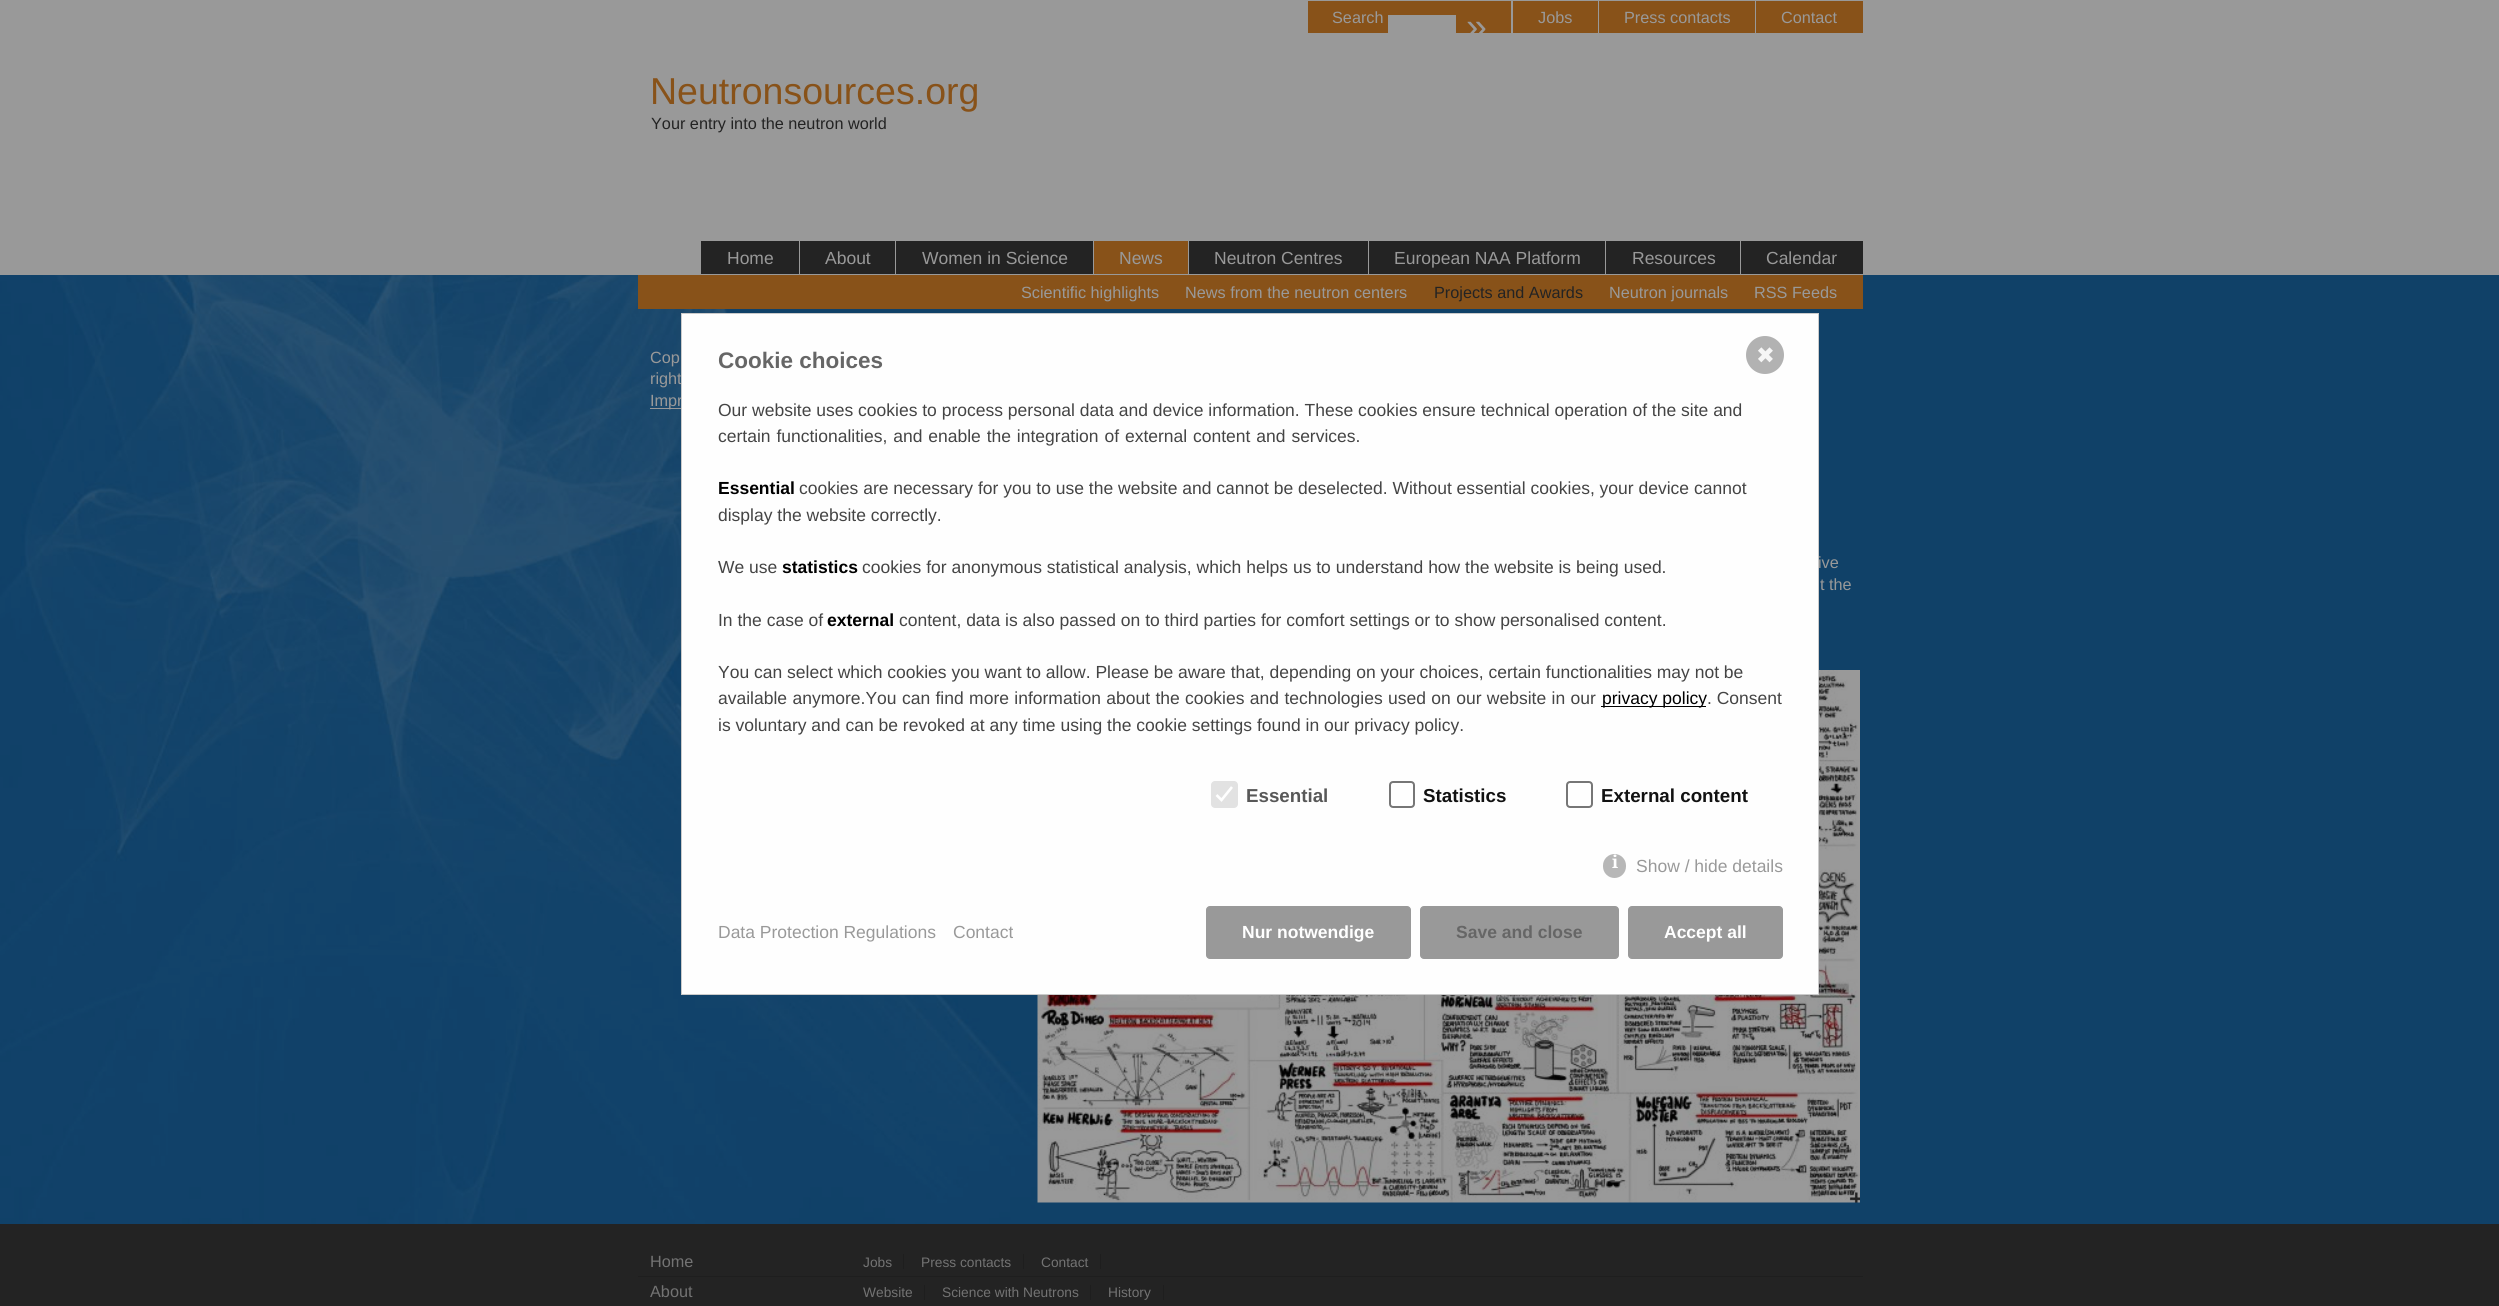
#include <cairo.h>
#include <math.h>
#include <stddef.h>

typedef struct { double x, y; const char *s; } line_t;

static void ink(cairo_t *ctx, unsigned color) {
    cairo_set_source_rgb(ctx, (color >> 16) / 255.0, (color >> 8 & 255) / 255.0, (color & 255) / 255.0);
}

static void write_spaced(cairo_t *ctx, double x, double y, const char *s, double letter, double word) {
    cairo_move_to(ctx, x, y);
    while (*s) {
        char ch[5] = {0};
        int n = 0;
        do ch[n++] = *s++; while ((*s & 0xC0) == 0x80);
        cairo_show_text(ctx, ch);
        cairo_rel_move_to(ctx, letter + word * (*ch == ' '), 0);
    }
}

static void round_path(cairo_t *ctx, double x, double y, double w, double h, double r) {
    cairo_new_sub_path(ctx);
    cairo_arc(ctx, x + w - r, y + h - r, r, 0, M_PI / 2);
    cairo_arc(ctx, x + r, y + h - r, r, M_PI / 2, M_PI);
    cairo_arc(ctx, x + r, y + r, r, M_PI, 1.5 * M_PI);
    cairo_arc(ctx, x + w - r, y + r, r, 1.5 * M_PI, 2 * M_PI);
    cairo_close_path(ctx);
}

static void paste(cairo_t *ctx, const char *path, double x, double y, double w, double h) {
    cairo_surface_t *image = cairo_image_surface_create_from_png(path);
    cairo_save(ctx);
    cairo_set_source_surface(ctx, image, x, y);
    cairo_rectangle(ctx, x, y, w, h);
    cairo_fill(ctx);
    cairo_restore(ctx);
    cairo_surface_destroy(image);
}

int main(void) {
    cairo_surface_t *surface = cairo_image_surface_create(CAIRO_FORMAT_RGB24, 2499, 1306);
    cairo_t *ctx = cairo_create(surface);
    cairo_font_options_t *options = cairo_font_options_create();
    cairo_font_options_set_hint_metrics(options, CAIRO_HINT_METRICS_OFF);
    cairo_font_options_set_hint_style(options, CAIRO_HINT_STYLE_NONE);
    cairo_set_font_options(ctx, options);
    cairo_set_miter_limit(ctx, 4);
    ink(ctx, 0xFFFFFF);
    cairo_paint(ctx);
    paste(ctx, "media/1.png", 0, 275, 2499, 949);
    ink(ctx, 0x999999);
    cairo_rectangle(ctx, 0, 0, 2499, 275);
    cairo_fill(ctx);
    ink(ctx, 0x885219);
    cairo_rectangle(ctx, 1308, 1, 203, 32);
    cairo_fill(ctx);
    cairo_select_font_face(ctx, "Arimo", CAIRO_FONT_SLANT_NORMAL, CAIRO_FONT_WEIGHT_NORMAL);
    cairo_set_font_size(ctx, 16.25);
    ink(ctx, 0x999999);
    cairo_move_to(ctx, 1332, 23);
    cairo_show_text(ctx, "Search");
    cairo_rectangle(ctx, 1388, 15, 68, 18);
    cairo_fill(ctx);
    cairo_set_font_size(ctx, 37.5);
    cairo_move_to(ctx, 1466, 39);
    cairo_show_text(ctx, "»");
    ink(ctx, 0x885219);
    cairo_rectangle(ctx, 1513, 1, 85, 32);
    cairo_fill(ctx);
    cairo_set_font_size(ctx, 16.25);
    ink(ctx, 0x999999);
    cairo_move_to(ctx, 1538, 23);
    cairo_show_text(ctx, "Jobs");
    ink(ctx, 0x885219);
    cairo_rectangle(ctx, 1599, 1, 156, 32);
    cairo_fill(ctx);
    ink(ctx, 0x999999);
    cairo_move_to(ctx, 1624, 23);
    cairo_show_text(ctx, "Press contacts");
    ink(ctx, 0x885219);
    cairo_rectangle(ctx, 1756, 1, 107, 32);
    cairo_fill(ctx);
    ink(ctx, 0x999999);
    cairo_move_to(ctx, 1781, 23);
    cairo_show_text(ctx, "Contact");
    cairo_set_font_size(ctx, 37.5);
    ink(ctx, 0x885219);
    cairo_move_to(ctx, 650, 104);
    cairo_show_text(ctx, "Neutronsources.org");
    cairo_set_font_size(ctx, 16.25);
    ink(ctx, 0x232323);
    cairo_move_to(ctx, 651, 129);
    cairo_show_text(ctx, "Your entry into the neutron world");
    cairo_rectangle(ctx, 701, 241, 98, 33);
    cairo_fill(ctx);
    cairo_set_font_size(ctx, 17.5);
    ink(ctx, 0x999999);
    cairo_move_to(ctx, 727, 264);
    cairo_show_text(ctx, "Home");
    ink(ctx, 0x232323);
    cairo_rectangle(ctx, 800, 241, 95, 33);
    cairo_fill(ctx);
    ink(ctx, 0x999999);
    cairo_move_to(ctx, 825, 264);
    cairo_show_text(ctx, "About");
    ink(ctx, 0x232323);
    cairo_rectangle(ctx, 896, 241, 197, 33);
    cairo_fill(ctx);
    ink(ctx, 0x999999);
    cairo_move_to(ctx, 922, 264);
    cairo_show_text(ctx, "Women in Science");
    ink(ctx, 0x885219);
    cairo_rectangle(ctx, 1094, 241, 94, 33);
    cairo_fill(ctx);
    ink(ctx, 0x999999);
    cairo_move_to(ctx, 1119, 264);
    cairo_show_text(ctx, "News");
    ink(ctx, 0x232323);
    cairo_rectangle(ctx, 1189, 241, 179, 33);
    cairo_fill(ctx);
    ink(ctx, 0x999999);
    cairo_move_to(ctx, 1214, 264);
    cairo_show_text(ctx, "Neutron Centres");
    ink(ctx, 0x232323);
    cairo_rectangle(ctx, 1369, 241, 236, 33);
    cairo_fill(ctx);
    ink(ctx, 0x999999);
    cairo_move_to(ctx, 1394, 264);
    cairo_show_text(ctx, "European NAA Platform");
    ink(ctx, 0x232323);
    cairo_rectangle(ctx, 1606, 241, 134, 33);
    cairo_fill(ctx);
    ink(ctx, 0x999999);
    cairo_move_to(ctx, 1632, 264);
    cairo_show_text(ctx, "Resources");
    ink(ctx, 0x232323);
    cairo_rectangle(ctx, 1741, 241, 122, 33);
    cairo_fill(ctx);
    ink(ctx, 0x999999);
    cairo_move_to(ctx, 1766, 264);
    cairo_show_text(ctx, "Calendar");
    ink(ctx, 0x885219);
    cairo_rectangle(ctx, 638, 275, 1225, 34);
    cairo_fill(ctx);
    cairo_set_font_size(ctx, 16.25);
    ink(ctx, 0x999999);
    cairo_move_to(ctx, 1021, 298);
    cairo_show_text(ctx, "Scientific highlights");
    cairo_move_to(ctx, 1185, 298);
    cairo_show_text(ctx, "News from the neutron centers");
    ink(ctx, 0x232323);
    cairo_move_to(ctx, 1434, 298);
    cairo_show_text(ctx, "Projects and Awards");
    ink(ctx, 0x999999);
    {
        static const line_t items[] = {
            {1609, 298, "Neutron journals"},
            {1754, 298, "RSS Feeds"},
            {650, 363, "Cop"},
            {650, 384, "right"},
        };
        for (size_t i = 0; i < sizeof items / sizeof *items; i++) {
            cairo_move_to(ctx, items[i].x, items[i].y);
            cairo_show_text(ctx, items[i].s);
        }
    }
    cairo_rectangle(ctx, 650, 408, 31, 1);
    cairo_fill(ctx);
    {
        static const line_t items[] = {
            {650, 406, "Impr"},
            {1818, 568, "ive"},
            {1820, 590, "t the"},
        };
        for (size_t i = 0; i < sizeof items / sizeof *items; i++) {
            cairo_move_to(ctx, items[i].x, items[i].y);
            cairo_show_text(ctx, items[i].s);
        }
    }
    paste(ctx, "media/2.png", 1037, 670, 823, 533);
    ink(ctx, 0xFEFEFE);
    cairo_rectangle(ctx, 681.5, 313.5, 1137, 681);
    cairo_fill_preserve(ctx);
    ink(ctx, 0xCBCBCB);
    cairo_set_line_width(ctx, 1);
    cairo_stroke(ctx);
    ink(ctx, 0xB2B2B2);
    cairo_arc(ctx, 1765, 355, 17.5, 0, 2 * M_PI);
    cairo_fill_preserve(ctx);
    cairo_set_line_width(ctx, 3);
    cairo_stroke(ctx);
    cairo_select_font_face(ctx, "DejaVu Sans", CAIRO_FONT_SLANT_NORMAL, CAIRO_FONT_WEIGHT_NORMAL);
    cairo_set_font_size(ctx, 22.5);
    ink(ctx, 0xF6F6F6);
    cairo_move_to(ctx, 1756, 363);
    cairo_show_text(ctx, "✖");
    cairo_select_font_face(ctx, "Liberation Sans", CAIRO_FONT_SLANT_NORMAL, CAIRO_FONT_WEIGHT_BOLD);
    ink(ctx, 0x666666);
    cairo_move_to(ctx, 718, 368);
    cairo_show_text(ctx, "Cookie choices");
    cairo_select_font_face(ctx, "Liberation Sans", CAIRO_FONT_SLANT_NORMAL, CAIRO_FONT_WEIGHT_NORMAL);
    cairo_set_font_size(ctx, 17.5);
    ink(ctx, 0x444444);
    cairo_move_to(ctx, 718, 416);
    cairo_show_text(ctx, "Our website uses cookies to process personal data and device information. These cookies ensure technical operation of the site and");
    write_spaced(ctx, 718, 442, "certain functionalities, and enable the integration of external content and services.", 0, 1);
    cairo_select_font_face(ctx, "Liberation Sans", CAIRO_FONT_SLANT_NORMAL, CAIRO_FONT_WEIGHT_BOLD);
    ink(ctx, 0x000000);
    cairo_move_to(ctx, 718, 494);
    cairo_show_text(ctx, "Essential");
    cairo_select_font_face(ctx, "Liberation Sans", CAIRO_FONT_SLANT_NORMAL, CAIRO_FONT_WEIGHT_NORMAL);
    ink(ctx, 0x444444);
    {
        static const line_t items[] = {
            {799, 494, "cookies are necessary for you to use the website and cannot be deselected. Without essential cookies, your device cannot"},
            {718, 521, "display the website correctly."},
            {718, 573, "We use"},
        };
        for (size_t i = 0; i < sizeof items / sizeof *items; i++) {
            cairo_move_to(ctx, items[i].x, items[i].y);
            cairo_show_text(ctx, items[i].s);
        }
    }
    cairo_select_font_face(ctx, "Liberation Sans", CAIRO_FONT_SLANT_NORMAL, CAIRO_FONT_WEIGHT_BOLD);
    ink(ctx, 0x000000);
    cairo_move_to(ctx, 782, 573);
    cairo_show_text(ctx, "statistics");
    cairo_select_font_face(ctx, "Liberation Sans", CAIRO_FONT_SLANT_NORMAL, CAIRO_FONT_WEIGHT_NORMAL);
    ink(ctx, 0x444444);
    cairo_move_to(ctx, 862, 573);
    cairo_show_text(ctx, "cookies for anonymous statistical analysis, which helps us to understand how the website is being used.");
    cairo_move_to(ctx, 718, 626);
    cairo_show_text(ctx, "In the case of");
    cairo_select_font_face(ctx, "Liberation Sans", CAIRO_FONT_SLANT_NORMAL, CAIRO_FONT_WEIGHT_BOLD);
    ink(ctx, 0x000000);
    cairo_move_to(ctx, 827, 626);
    cairo_show_text(ctx, "external");
    cairo_select_font_face(ctx, "Liberation Sans", CAIRO_FONT_SLANT_NORMAL, CAIRO_FONT_WEIGHT_NORMAL);
    ink(ctx, 0x444444);
    cairo_move_to(ctx, 899, 626);
    cairo_show_text(ctx, "content, data is also passed on to third parties for comfort settings or to show personalised content.");
    cairo_move_to(ctx, 718, 678);
    cairo_show_text(ctx, "You can select which cookies you want to allow. Please be aware that, depending on your choices, certain functionalities may not be");
    write_spaced(ctx, 718, 704, "available anymore.You can find more information about the cookies and technologies used on our website in our", 0, 0.5);
    ink(ctx, 0x000000);
    cairo_rectangle(ctx, 1601, 706, 105, 1);
    cairo_fill(ctx);
    cairo_move_to(ctx, 1602, 704);
    cairo_show_text(ctx, "privacy policy");
    ink(ctx, 0x444444);
    cairo_move_to(ctx, 1707, 704);
    cairo_show_text(ctx, ". Consent");
    cairo_move_to(ctx, 718, 731);
    cairo_show_text(ctx, "is voluntary and can be revoked at any time using the cookie settings found in our privacy policy.");
    ink(ctx, 0xE2E2E2);
    round_path(ctx, 1211, 781, 27, 27, 4);
    cairo_fill(ctx);
    cairo_new_path(ctx);
    cairo_move_to(ctx, 1216.5, 795);
    cairo_line_to(ctx, 1221.5, 800);
    cairo_line_to(ctx, 1232, 787);
    ink(ctx, 0xFFFFFF);
    cairo_set_line_width(ctx, 2.6);
    cairo_stroke(ctx);
    cairo_select_font_face(ctx, "Liberation Sans", CAIRO_FONT_SLANT_NORMAL, CAIRO_FONT_WEIGHT_BOLD);
    cairo_set_font_size(ctx, 18.75);
    ink(ctx, 0x585858);
    cairo_move_to(ctx, 1246, 802);
    cairo_show_text(ctx, "Essential");
    round_path(ctx, 1390, 782, 24, 25, 3);
    ink(ctx, 0x767676);
    cairo_set_line_width(ctx, 2);
    cairo_stroke(ctx);
    ink(ctx, 0x111111);
    cairo_move_to(ctx, 1423, 802);
    cairo_show_text(ctx, "Statistics");
    round_path(ctx, 1567, 782, 25, 25, 3);
    ink(ctx, 0x767676);
    cairo_stroke(ctx);
    ink(ctx, 0x111111);
    cairo_move_to(ctx, 1601, 802);
    cairo_show_text(ctx, "External content");
    ink(ctx, 0xB7B7B7);
    round_path(ctx, 1603, 854, 23, 24, 11.5);
    cairo_fill(ctx);
    cairo_select_font_face(ctx, "Noto Serif", CAIRO_FONT_SLANT_NORMAL, CAIRO_FONT_WEIGHT_BOLD);
    cairo_set_font_size(ctx, 17.5);
    ink(ctx, 0xFFFFFF);
    cairo_move_to(ctx, 1612, 868);
    cairo_show_text(ctx, "i");
    cairo_select_font_face(ctx, "Liberation Sans", CAIRO_FONT_SLANT_NORMAL, CAIRO_FONT_WEIGHT_NORMAL);
    ink(ctx, 0x999999);
    {
        static const line_t items[] = {
            {1636, 872, "Show / hide details"},
            {718, 938, "Data Protection Regulations"},
            {953, 938, "Contact"},
        };
        for (size_t i = 0; i < sizeof items / sizeof *items; i++) {
            cairo_move_to(ctx, items[i].x, items[i].y);
            cairo_show_text(ctx, items[i].s);
        }
    }
    round_path(ctx, 1206.5, 906.5, 204, 52, 3.5);
    cairo_fill_preserve(ctx);
    cairo_set_line_width(ctx, 1);
    cairo_stroke(ctx);
    cairo_select_font_face(ctx, "Liberation Sans", CAIRO_FONT_SLANT_NORMAL, CAIRO_FONT_WEIGHT_BOLD);
    ink(ctx, 0xFFFFFF);
    cairo_move_to(ctx, 1242, 938);
    cairo_show_text(ctx, "Nur notwendige");
    ink(ctx, 0x999999);
    round_path(ctx, 1420.5, 906.5, 198, 52, 3.5);
    cairo_fill_preserve(ctx);
    cairo_stroke(ctx);
    ink(ctx, 0x666666);
    cairo_move_to(ctx, 1456, 938);
    cairo_show_text(ctx, "Save and close");
    ink(ctx, 0x999999);
    round_path(ctx, 1628.5, 906.5, 154, 52, 3.5);
    cairo_fill_preserve(ctx);
    cairo_stroke(ctx);
    ink(ctx, 0xFFFFFF);
    cairo_move_to(ctx, 1664, 938);
    cairo_show_text(ctx, "Accept all");
    ink(ctx, 0x232323);
    cairo_rectangle(ctx, 0, 1224, 2499, 82);
    cairo_fill(ctx);
    ink(ctx, 0x1E1E1E);
    cairo_rectangle(ctx, 638, 1276, 1225, 1);
    cairo_fill(ctx);
    cairo_select_font_face(ctx, "Arimo", CAIRO_FONT_SLANT_NORMAL, CAIRO_FONT_WEIGHT_NORMAL);
    cairo_set_font_size(ctx, 16.25);
    ink(ctx, 0x737373);
    cairo_move_to(ctx, 650, 1267);
    cairo_show_text(ctx, "Home");
    cairo_set_font_size(ctx, 13.75);
    cairo_move_to(ctx, 863, 1267);
    cairo_show_text(ctx, "Jobs");
    ink(ctx, 0x1E1E1E);
    cairo_rectangle(ctx, 903, 1254, 1, 15);
    cairo_fill(ctx);
    ink(ctx, 0x737373);
    cairo_move_to(ctx, 921, 1267);
    cairo_show_text(ctx, "Press contacts");
    ink(ctx, 0x1E1E1E);
    cairo_rectangle(ctx, 1023, 1254, 1, 15);
    cairo_fill(ctx);
    ink(ctx, 0x737373);
    cairo_move_to(ctx, 1041, 1267);
    cairo_show_text(ctx, "Contact");
    ink(ctx, 0x1E1E1E);
    cairo_rectangle(ctx, 1100, 1254, 1, 15);
    cairo_fill(ctx);
    cairo_set_font_size(ctx, 16.25);
    ink(ctx, 0x737373);
    cairo_move_to(ctx, 650, 1297);
    cairo_show_text(ctx, "About");
    cairo_set_font_size(ctx, 13.75);
    cairo_move_to(ctx, 863, 1297);
    cairo_show_text(ctx, "Website");
    ink(ctx, 0x1E1E1E);
    cairo_rectangle(ctx, 924, 1285, 1, 15);
    cairo_fill(ctx);
    ink(ctx, 0x737373);
    cairo_move_to(ctx, 942, 1297);
    cairo_show_text(ctx, "Science with Neutrons");
    ink(ctx, 0x1E1E1E);
    cairo_rectangle(ctx, 1090, 1285, 1, 15);
    cairo_fill(ctx);
    ink(ctx, 0x737373);
    cairo_move_to(ctx, 1108, 1297);
    cairo_show_text(ctx, "History");
    ink(ctx, 0x1E1E1E);
    cairo_rectangle(ctx, 1163, 1285, 1, 15);
    cairo_fill(ctx);
    cairo_surface_write_to_png(surface, "image.png");
    cairo_font_options_destroy(options);
    cairo_destroy(ctx);
    cairo_surface_destroy(surface);
    return 0;
}
